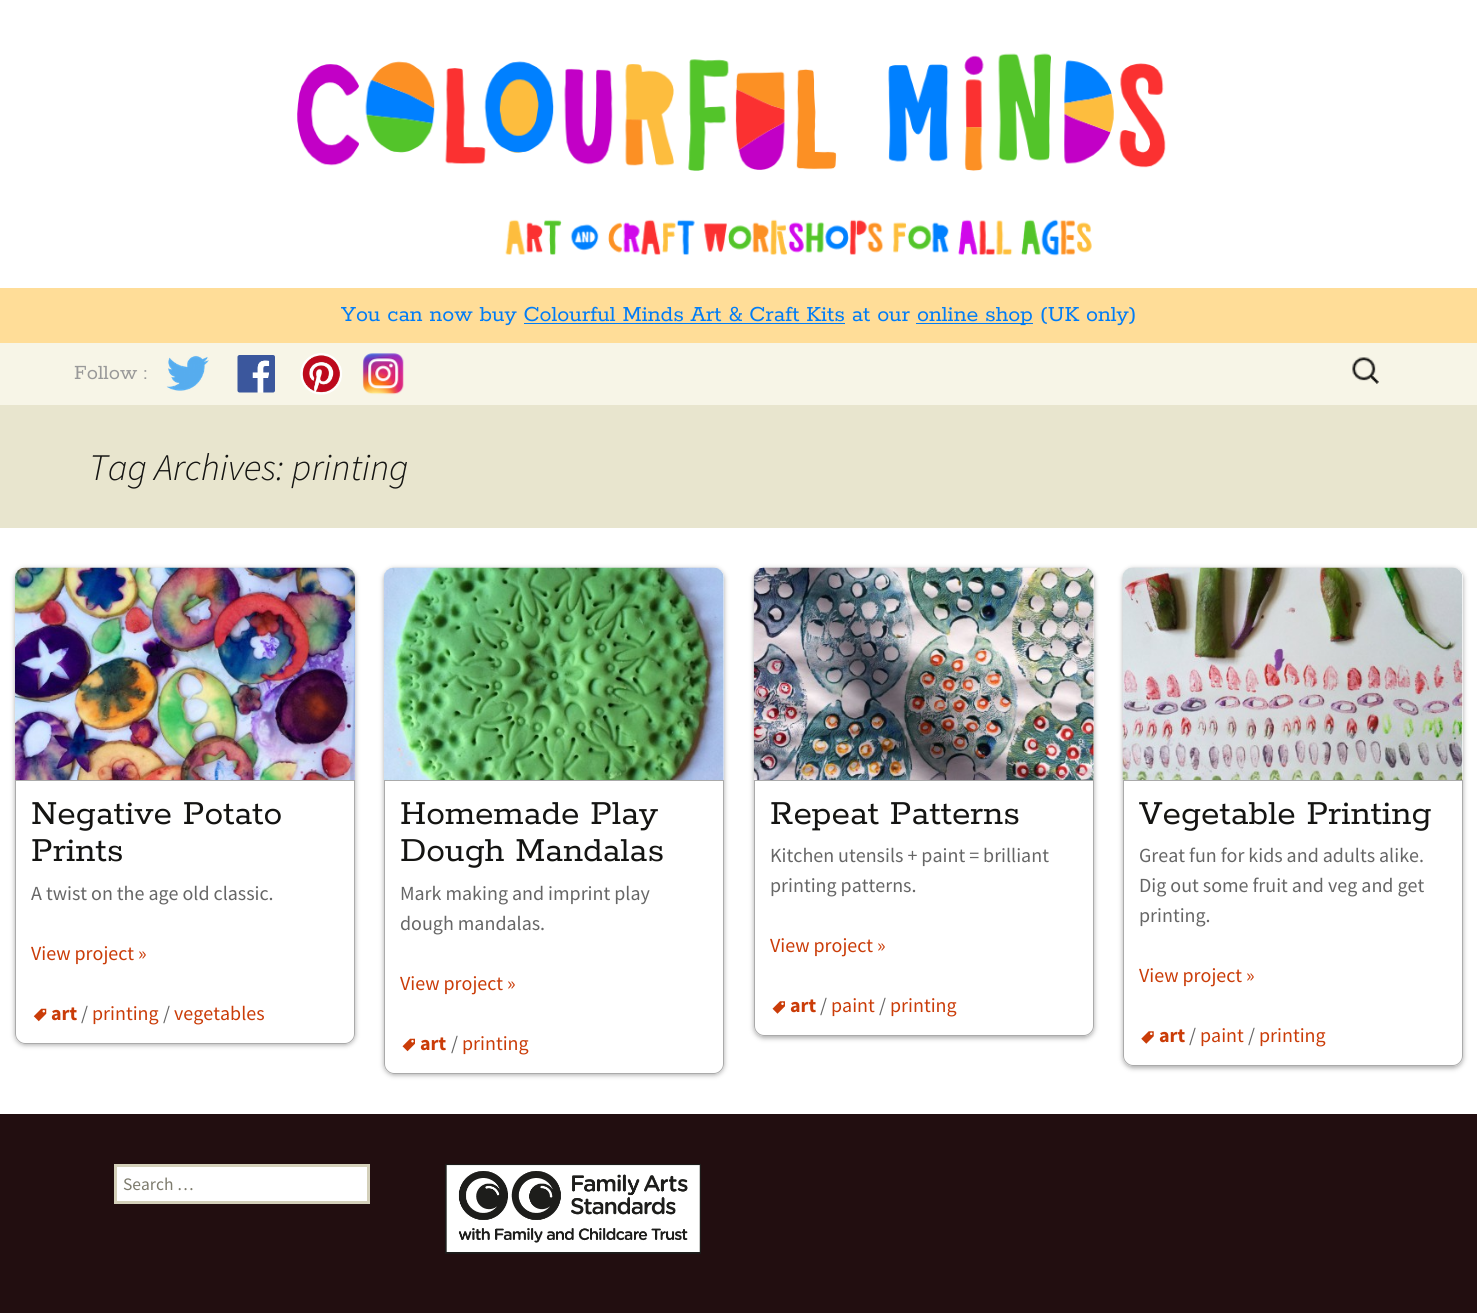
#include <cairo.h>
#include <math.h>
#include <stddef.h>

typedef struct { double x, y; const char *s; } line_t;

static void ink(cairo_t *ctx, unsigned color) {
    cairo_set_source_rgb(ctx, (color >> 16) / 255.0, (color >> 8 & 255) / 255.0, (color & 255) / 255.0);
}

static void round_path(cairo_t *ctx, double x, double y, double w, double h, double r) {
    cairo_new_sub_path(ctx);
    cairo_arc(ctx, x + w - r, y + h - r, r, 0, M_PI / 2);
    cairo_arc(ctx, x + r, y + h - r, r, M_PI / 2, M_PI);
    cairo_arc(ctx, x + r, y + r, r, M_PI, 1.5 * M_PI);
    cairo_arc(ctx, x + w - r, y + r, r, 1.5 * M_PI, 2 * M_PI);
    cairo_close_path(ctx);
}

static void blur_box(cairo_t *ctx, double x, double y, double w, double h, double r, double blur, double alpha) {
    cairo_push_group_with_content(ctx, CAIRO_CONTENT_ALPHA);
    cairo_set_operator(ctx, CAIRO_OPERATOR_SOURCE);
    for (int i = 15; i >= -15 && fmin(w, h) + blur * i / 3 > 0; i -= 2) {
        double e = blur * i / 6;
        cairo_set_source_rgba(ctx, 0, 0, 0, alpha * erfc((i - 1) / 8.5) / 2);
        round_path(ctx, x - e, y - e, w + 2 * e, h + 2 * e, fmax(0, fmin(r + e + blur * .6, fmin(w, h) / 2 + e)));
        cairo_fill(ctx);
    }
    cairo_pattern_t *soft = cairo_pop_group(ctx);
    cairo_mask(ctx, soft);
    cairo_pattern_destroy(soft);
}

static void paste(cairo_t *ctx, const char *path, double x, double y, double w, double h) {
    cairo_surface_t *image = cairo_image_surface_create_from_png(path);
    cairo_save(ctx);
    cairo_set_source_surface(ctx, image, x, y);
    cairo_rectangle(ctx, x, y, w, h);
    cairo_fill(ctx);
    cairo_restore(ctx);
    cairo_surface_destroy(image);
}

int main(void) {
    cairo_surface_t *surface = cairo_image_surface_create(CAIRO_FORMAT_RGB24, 1477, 1313);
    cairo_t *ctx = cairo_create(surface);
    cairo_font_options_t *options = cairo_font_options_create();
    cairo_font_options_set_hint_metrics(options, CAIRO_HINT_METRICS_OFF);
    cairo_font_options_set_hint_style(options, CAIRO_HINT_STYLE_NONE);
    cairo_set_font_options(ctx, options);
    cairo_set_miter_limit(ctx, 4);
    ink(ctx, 0xFFFFFF);
    cairo_paint(ctx);
    paste(ctx, "media/1.png", 297, 53, 869, 118);
    paste(ctx, "media/2.png", 505, 219, 587, 37);
    ink(ctx, 0xFFDD98);
    cairo_rectangle(ctx, 0, 288, 1477, 55);
    cairo_fill(ctx);
    cairo_select_font_face(ctx, "Rokkitt", CAIRO_FONT_SLANT_NORMAL, CAIRO_FONT_WEIGHT_NORMAL);
    cairo_set_font_size(ctx, 24);
    ink(ctx, 0x007CF7);
    cairo_move_to(ctx, 341, 321);
    cairo_show_text(ctx, "You can now buy Colourful Minds Art & Craft Kits at our");
    cairo_rectangle(ctx, 916, 323, 117, 1);
    cairo_fill(ctx);
    cairo_move_to(ctx, 917, 321);
    cairo_show_text(ctx, "online shop (UK only)");
    cairo_rectangle(ctx, 524, 323, 321, 1);
    cairo_fill(ctx);
    ink(ctx, 0xF7F5E7);
    cairo_rectangle(ctx, 0, 343, 1477, 62);
    cairo_fill(ctx);
    cairo_set_font_size(ctx, 22.5);
    ink(ctx, 0x999999);
    cairo_move_to(ctx, 74, 379);
    cairo_show_text(ctx, "Follow :");
    paste(ctx, "media/3.png", 166, 355, 43, 36);
    paste(ctx, "media/4.png", 237, 355, 38, 38);
    paste(ctx, "media/5.png", 300, 353, 42, 42);
    paste(ctx, "media/6.png", 362, 353, 42, 42);
    paste(ctx, "media/7.png", 1352, 357, 27, 27);
    ink(ctx, 0xE8E5CE);
    cairo_rectangle(ctx, 0, 405, 1477, 123);
    cairo_fill(ctx);
    cairo_select_font_face(ctx, "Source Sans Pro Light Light", CAIRO_FONT_SLANT_ITALIC, CAIRO_FONT_WEIGHT_NORMAL);
    cairo_set_font_size(ctx, 37.5);
    ink(ctx, 0x141412);
    cairo_move_to(ctx, 89, 480);
    cairo_show_text(ctx, "Tag Archives: printing");
    cairo_save(ctx);
    cairo_set_fill_rule(ctx, CAIRO_FILL_RULE_EVEN_ODD);
    cairo_new_path(ctx);
    cairo_move_to(ctx, 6, 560);
    cairo_line_to(ctx, 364, 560);
    cairo_line_to(ctx, 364, 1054);
    cairo_line_to(ctx, 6, 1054);
    cairo_close_path(ctx);
    cairo_move_to(ctx, 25, 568);
    cairo_line_to(ctx, 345, 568);
    cairo_curve_to(ctx, 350.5, 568, 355, 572.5, 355, 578);
    cairo_line_to(ctx, 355, 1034);
    cairo_curve_to(ctx, 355, 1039.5, 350.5, 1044, 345, 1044);
    cairo_line_to(ctx, 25, 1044);
    cairo_curve_to(ctx, 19.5, 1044, 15, 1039.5, 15, 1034);
    cairo_line_to(ctx, 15, 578);
    cairo_curve_to(ctx, 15, 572.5, 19.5, 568, 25, 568);
    cairo_close_path(ctx);
    cairo_clip(ctx);
    ink(ctx, 0xAAAAAA);
    blur_box(ctx, 15, 569, 340, 476, 10, 2.5, 1);
    cairo_restore(ctx);
    paste(ctx, "media/8.png", 15, 567, 340, 213);
    cairo_new_path(ctx);
    cairo_move_to(ctx, 15.5, 780.5);
    cairo_line_to(ctx, 354.5, 780.5);
    cairo_line_to(ctx, 354.5, 1034);
    cairo_curve_to(ctx, 354.5, 1039, 350, 1043.5, 345, 1043.5);
    cairo_line_to(ctx, 25, 1043.5);
    cairo_curve_to(ctx, 20, 1043.5, 15.5, 1039, 15.5, 1034);
    cairo_close_path(ctx);
    ink(ctx, 0xAAAAAA);
    cairo_set_line_width(ctx, 1);
    cairo_stroke(ctx);
    cairo_select_font_face(ctx, "Rokkitt", CAIRO_FONT_SLANT_NORMAL, CAIRO_FONT_WEIGHT_NORMAL);
    ink(ctx, 0x141412);
    cairo_move_to(ctx, 31, 824);
    cairo_show_text(ctx, "Negative Potato");
    cairo_move_to(ctx, 31, 861);
    cairo_show_text(ctx, "Prints");
    cairo_select_font_face(ctx, "Source Sans Pro", CAIRO_FONT_SLANT_NORMAL, CAIRO_FONT_WEIGHT_NORMAL);
    cairo_set_font_size(ctx, 20);
    ink(ctx, 0x666666);
    cairo_move_to(ctx, 31, 900);
    cairo_show_text(ctx, "A twist on the age old classic.");
    ink(ctx, 0xCA3C08);
    cairo_move_to(ctx, 31, 960);
    cairo_show_text(ctx, "View project »");
    paste(ctx, "media/9.png", 33, 1008, 14, 14);
    cairo_select_font_face(ctx, "Source Sans Pro", CAIRO_FONT_SLANT_NORMAL, CAIRO_FONT_WEIGHT_BOLD);
    cairo_move_to(ctx, 51, 1020);
    cairo_show_text(ctx, "art");
    cairo_select_font_face(ctx, "Source Sans Pro", CAIRO_FONT_SLANT_NORMAL, CAIRO_FONT_WEIGHT_NORMAL);
    ink(ctx, 0x666666);
    cairo_move_to(ctx, 81, 1020);
    cairo_show_text(ctx, "/");
    ink(ctx, 0xCA3C08);
    cairo_move_to(ctx, 92, 1020);
    cairo_show_text(ctx, "printing");
    ink(ctx, 0x666666);
    cairo_move_to(ctx, 163, 1020);
    cairo_show_text(ctx, "/");
    ink(ctx, 0xCA3C08);
    cairo_move_to(ctx, 174, 1020);
    cairo_show_text(ctx, "vegetables");
    cairo_save(ctx);
    cairo_set_fill_rule(ctx, CAIRO_FILL_RULE_EVEN_ODD);
    cairo_new_path(ctx);
    cairo_move_to(ctx, 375, 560);
    cairo_line_to(ctx, 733, 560);
    cairo_line_to(ctx, 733, 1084);
    cairo_line_to(ctx, 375, 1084);
    cairo_close_path(ctx);
    cairo_move_to(ctx, 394, 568);
    cairo_line_to(ctx, 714, 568);
    cairo_curve_to(ctx, 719.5, 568, 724, 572.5, 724, 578);
    cairo_line_to(ctx, 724, 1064);
    cairo_curve_to(ctx, 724, 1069.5, 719.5, 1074, 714, 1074);
    cairo_line_to(ctx, 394, 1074);
    cairo_curve_to(ctx, 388.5, 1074, 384, 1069.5, 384, 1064);
    cairo_line_to(ctx, 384, 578);
    cairo_curve_to(ctx, 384, 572.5, 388.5, 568, 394, 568);
    cairo_close_path(ctx);
    cairo_clip(ctx);
    ink(ctx, 0xAAAAAA);
    blur_box(ctx, 384, 569, 340, 506, 10, 2.5, 1);
    cairo_restore(ctx);
    paste(ctx, "media/10.png", 384, 567, 340, 213);
    cairo_new_path(ctx);
    cairo_move_to(ctx, 384.5, 780.5);
    cairo_line_to(ctx, 723.5, 780.5);
    cairo_line_to(ctx, 723.5, 1064);
    cairo_curve_to(ctx, 723.5, 1069, 719, 1073.5, 714, 1073.5);
    cairo_line_to(ctx, 394, 1073.5);
    cairo_curve_to(ctx, 389, 1073.5, 384.5, 1069, 384.5, 1064);
    cairo_close_path(ctx);
    ink(ctx, 0xAAAAAA);
    cairo_stroke(ctx);
    cairo_select_font_face(ctx, "Rokkitt", CAIRO_FONT_SLANT_NORMAL, CAIRO_FONT_WEIGHT_NORMAL);
    cairo_set_font_size(ctx, 37.5);
    ink(ctx, 0x141412);
    cairo_move_to(ctx, 400, 824);
    cairo_show_text(ctx, "Homemade Play");
    cairo_move_to(ctx, 400, 861);
    cairo_show_text(ctx, "Dough Mandalas");
    cairo_select_font_face(ctx, "Source Sans Pro", CAIRO_FONT_SLANT_NORMAL, CAIRO_FONT_WEIGHT_NORMAL);
    cairo_set_font_size(ctx, 20);
    ink(ctx, 0x666666);
    cairo_move_to(ctx, 400, 900);
    cairo_show_text(ctx, "Mark making and imprint play");
    cairo_move_to(ctx, 400, 930);
    cairo_show_text(ctx, "dough mandalas.");
    ink(ctx, 0xCA3C08);
    cairo_move_to(ctx, 400, 990);
    cairo_show_text(ctx, "View project »");
    paste(ctx, "media/11.png", 402, 1038, 13, 14);
    cairo_select_font_face(ctx, "Source Sans Pro", CAIRO_FONT_SLANT_NORMAL, CAIRO_FONT_WEIGHT_BOLD);
    cairo_move_to(ctx, 420, 1050);
    cairo_show_text(ctx, "art");
    cairo_select_font_face(ctx, "Source Sans Pro", CAIRO_FONT_SLANT_NORMAL, CAIRO_FONT_WEIGHT_NORMAL);
    ink(ctx, 0x666666);
    cairo_move_to(ctx, 451, 1050);
    cairo_show_text(ctx, "/");
    ink(ctx, 0xCA3C08);
    cairo_move_to(ctx, 462, 1050);
    cairo_show_text(ctx, "printing");
    cairo_save(ctx);
    cairo_set_fill_rule(ctx, CAIRO_FILL_RULE_EVEN_ODD);
    cairo_new_path(ctx);
    cairo_move_to(ctx, 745, 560);
    cairo_line_to(ctx, 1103, 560);
    cairo_line_to(ctx, 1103, 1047);
    cairo_line_to(ctx, 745, 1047);
    cairo_close_path(ctx);
    cairo_move_to(ctx, 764, 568);
    cairo_line_to(ctx, 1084, 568);
    cairo_curve_to(ctx, 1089.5, 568, 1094, 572.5, 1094, 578);
    cairo_line_to(ctx, 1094, 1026);
    cairo_curve_to(ctx, 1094, 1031.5, 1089.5, 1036, 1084, 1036);
    cairo_line_to(ctx, 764, 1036);
    cairo_curve_to(ctx, 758.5, 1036, 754, 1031.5, 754, 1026);
    cairo_line_to(ctx, 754, 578);
    cairo_curve_to(ctx, 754, 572.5, 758.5, 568, 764, 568);
    cairo_close_path(ctx);
    cairo_clip(ctx);
    ink(ctx, 0xAAAAAA);
    blur_box(ctx, 754, 569, 340, 469, 10, 2.5, 1);
    cairo_restore(ctx);
    paste(ctx, "media/12.png", 753, 567, 341, 213);
    cairo_new_path(ctx);
    cairo_move_to(ctx, 754.5, 780.5);
    cairo_line_to(ctx, 1093.5, 780.5);
    cairo_line_to(ctx, 1093.5, 1026);
    cairo_curve_to(ctx, 1093.5, 1031, 1089, 1035.5, 1084, 1035.5);
    cairo_line_to(ctx, 764, 1035.5);
    cairo_curve_to(ctx, 759, 1035.5, 754.5, 1031, 754.5, 1026);
    cairo_close_path(ctx);
    ink(ctx, 0xAAAAAA);
    cairo_stroke(ctx);
    cairo_select_font_face(ctx, "Rokkitt", CAIRO_FONT_SLANT_NORMAL, CAIRO_FONT_WEIGHT_NORMAL);
    cairo_set_font_size(ctx, 37.5);
    ink(ctx, 0x141412);
    cairo_move_to(ctx, 770, 824);
    cairo_show_text(ctx, "Repeat Patterns");
    cairo_select_font_face(ctx, "Source Sans Pro", CAIRO_FONT_SLANT_NORMAL, CAIRO_FONT_WEIGHT_NORMAL);
    cairo_set_font_size(ctx, 20);
    ink(ctx, 0x666666);
    cairo_move_to(ctx, 770, 862);
    cairo_show_text(ctx, "Kitchen utensils + paint = brilliant");
    cairo_move_to(ctx, 770, 892);
    cairo_show_text(ctx, "printing patterns.");
    ink(ctx, 0xCA3C08);
    cairo_move_to(ctx, 770, 952);
    cairo_show_text(ctx, "View project »");
    paste(ctx, "media/13.png", 772, 1001, 13, 13);
    cairo_select_font_face(ctx, "Source Sans Pro", CAIRO_FONT_SLANT_NORMAL, CAIRO_FONT_WEIGHT_BOLD);
    cairo_move_to(ctx, 790, 1012);
    cairo_show_text(ctx, "art");
    cairo_select_font_face(ctx, "Source Sans Pro", CAIRO_FONT_SLANT_NORMAL, CAIRO_FONT_WEIGHT_NORMAL);
    ink(ctx, 0x666666);
    cairo_move_to(ctx, 820, 1012);
    cairo_show_text(ctx, "/");
    ink(ctx, 0xCA3C08);
    cairo_move_to(ctx, 831, 1012);
    cairo_show_text(ctx, "paint");
    ink(ctx, 0x666666);
    cairo_move_to(ctx, 879, 1012);
    cairo_show_text(ctx, "/");
    ink(ctx, 0xCA3C08);
    cairo_move_to(ctx, 890, 1012);
    cairo_show_text(ctx, "printing");
    cairo_save(ctx);
    cairo_set_fill_rule(ctx, CAIRO_FILL_RULE_EVEN_ODD);
    cairo_new_path(ctx);
    cairo_move_to(ctx, 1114, 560);
    cairo_line_to(ctx, 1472, 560);
    cairo_line_to(ctx, 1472, 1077);
    cairo_line_to(ctx, 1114, 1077);
    cairo_close_path(ctx);
    cairo_move_to(ctx, 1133, 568);
    cairo_line_to(ctx, 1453, 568);
    cairo_curve_to(ctx, 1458.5, 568, 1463, 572.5, 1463, 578);
    cairo_line_to(ctx, 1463, 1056);
    cairo_curve_to(ctx, 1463, 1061.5, 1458.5, 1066, 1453, 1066);
    cairo_line_to(ctx, 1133, 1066);
    cairo_curve_to(ctx, 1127.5, 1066, 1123, 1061.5, 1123, 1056);
    cairo_line_to(ctx, 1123, 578);
    cairo_curve_to(ctx, 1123, 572.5, 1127.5, 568, 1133, 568);
    cairo_close_path(ctx);
    cairo_clip(ctx);
    ink(ctx, 0xAAAAAA);
    blur_box(ctx, 1123, 569, 340, 499, 10, 2.5, 1);
    cairo_restore(ctx);
    paste(ctx, "media/14.png", 1122, 567, 341, 213);
    cairo_new_path(ctx);
    cairo_move_to(ctx, 1123.5, 780.5);
    cairo_line_to(ctx, 1462.5, 780.5);
    cairo_line_to(ctx, 1462.5, 1056);
    cairo_curve_to(ctx, 1462.5, 1061, 1458, 1065.5, 1453, 1065.5);
    cairo_line_to(ctx, 1133, 1065.5);
    cairo_curve_to(ctx, 1128, 1065.5, 1123.5, 1061, 1123.5, 1056);
    cairo_close_path(ctx);
    ink(ctx, 0xAAAAAA);
    cairo_stroke(ctx);
    cairo_select_font_face(ctx, "Rokkitt", CAIRO_FONT_SLANT_NORMAL, CAIRO_FONT_WEIGHT_NORMAL);
    cairo_set_font_size(ctx, 37.5);
    ink(ctx, 0x141412);
    cairo_move_to(ctx, 1139, 824);
    cairo_show_text(ctx, "Vegetable Printing");
    cairo_select_font_face(ctx, "Source Sans Pro", CAIRO_FONT_SLANT_NORMAL, CAIRO_FONT_WEIGHT_NORMAL);
    cairo_set_font_size(ctx, 20);
    ink(ctx, 0x666666);
    {
        static const line_t items[] = {
            {1139, 862, "Great fun for kids and adults alike."},
            {1139, 892, "Dig out some fruit and veg and get"},
            {1139, 922, "printing."},
        };
        for (size_t i = 0; i < sizeof items / sizeof *items; i++) {
            cairo_move_to(ctx, items[i].x, items[i].y);
            cairo_show_text(ctx, items[i].s);
        }
    }
    ink(ctx, 0xCA3C08);
    cairo_move_to(ctx, 1139, 982);
    cairo_show_text(ctx, "View project »");
    paste(ctx, "media/15.png", 1141, 1031, 13, 13);
    cairo_select_font_face(ctx, "Source Sans Pro", CAIRO_FONT_SLANT_NORMAL, CAIRO_FONT_WEIGHT_BOLD);
    cairo_move_to(ctx, 1159, 1042);
    cairo_show_text(ctx, "art");
    cairo_select_font_face(ctx, "Source Sans Pro", CAIRO_FONT_SLANT_NORMAL, CAIRO_FONT_WEIGHT_NORMAL);
    ink(ctx, 0x666666);
    cairo_move_to(ctx, 1189, 1042);
    cairo_show_text(ctx, "/");
    ink(ctx, 0xCA3C08);
    cairo_move_to(ctx, 1200, 1042);
    cairo_show_text(ctx, "paint");
    ink(ctx, 0x666666);
    cairo_move_to(ctx, 1248, 1042);
    cairo_show_text(ctx, "/");
    ink(ctx, 0xCA3C08);
    cairo_move_to(ctx, 1259, 1042);
    cairo_show_text(ctx, "printing");
    ink(ctx, 0x220E10);
    cairo_rectangle(ctx, 0, 1114, 1477, 199);
    cairo_fill(ctx);
    ink(ctx, 0xFFFFFF);
    cairo_rectangle(ctx, 115.5, 1165.5, 253, 37);
    cairo_fill_preserve(ctx);
    ink(ctx, 0xD4D0BA);
    cairo_set_line_width(ctx, 3);
    cairo_stroke(ctx);
    cairo_set_font_size(ctx, 17.5);
    ink(ctx, 0x7D7B6D);
    cairo_move_to(ctx, 123, 1190);
    cairo_show_text(ctx, "Search …");
    paste(ctx, "media/16.png", 445, 1164, 256, 90);
    cairo_surface_write_to_png(surface, "image.png");
    cairo_font_options_destroy(options);
    cairo_destroy(ctx);
    cairo_surface_destroy(surface);
    return 0;
}
